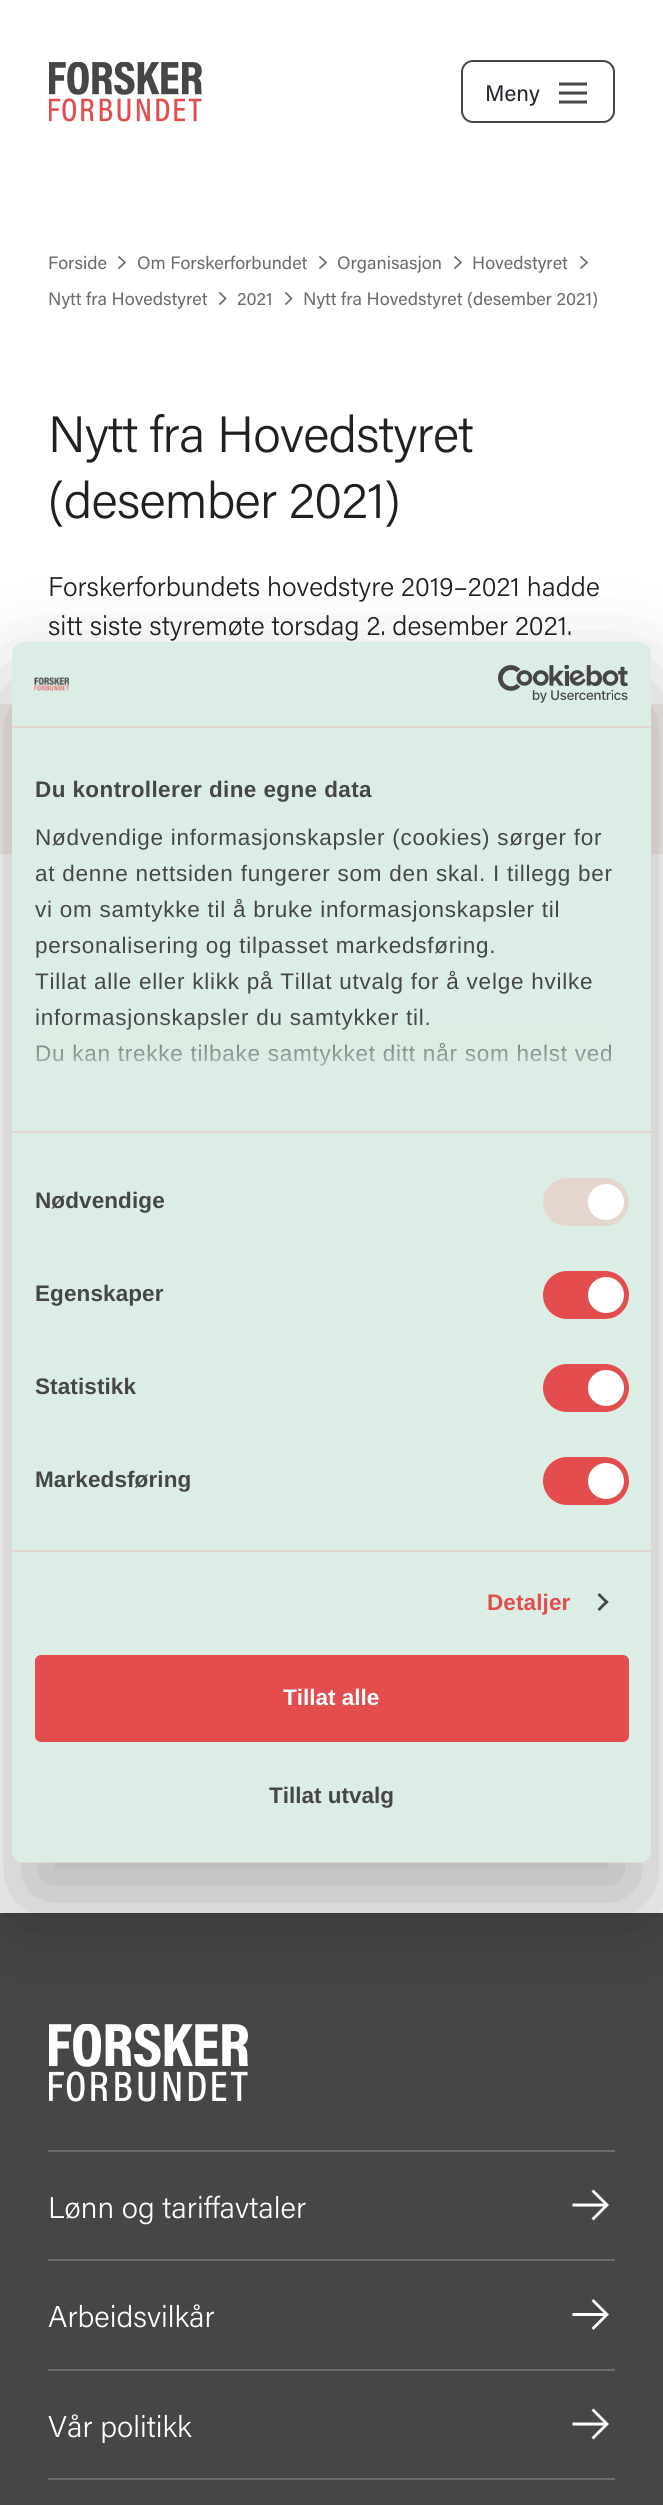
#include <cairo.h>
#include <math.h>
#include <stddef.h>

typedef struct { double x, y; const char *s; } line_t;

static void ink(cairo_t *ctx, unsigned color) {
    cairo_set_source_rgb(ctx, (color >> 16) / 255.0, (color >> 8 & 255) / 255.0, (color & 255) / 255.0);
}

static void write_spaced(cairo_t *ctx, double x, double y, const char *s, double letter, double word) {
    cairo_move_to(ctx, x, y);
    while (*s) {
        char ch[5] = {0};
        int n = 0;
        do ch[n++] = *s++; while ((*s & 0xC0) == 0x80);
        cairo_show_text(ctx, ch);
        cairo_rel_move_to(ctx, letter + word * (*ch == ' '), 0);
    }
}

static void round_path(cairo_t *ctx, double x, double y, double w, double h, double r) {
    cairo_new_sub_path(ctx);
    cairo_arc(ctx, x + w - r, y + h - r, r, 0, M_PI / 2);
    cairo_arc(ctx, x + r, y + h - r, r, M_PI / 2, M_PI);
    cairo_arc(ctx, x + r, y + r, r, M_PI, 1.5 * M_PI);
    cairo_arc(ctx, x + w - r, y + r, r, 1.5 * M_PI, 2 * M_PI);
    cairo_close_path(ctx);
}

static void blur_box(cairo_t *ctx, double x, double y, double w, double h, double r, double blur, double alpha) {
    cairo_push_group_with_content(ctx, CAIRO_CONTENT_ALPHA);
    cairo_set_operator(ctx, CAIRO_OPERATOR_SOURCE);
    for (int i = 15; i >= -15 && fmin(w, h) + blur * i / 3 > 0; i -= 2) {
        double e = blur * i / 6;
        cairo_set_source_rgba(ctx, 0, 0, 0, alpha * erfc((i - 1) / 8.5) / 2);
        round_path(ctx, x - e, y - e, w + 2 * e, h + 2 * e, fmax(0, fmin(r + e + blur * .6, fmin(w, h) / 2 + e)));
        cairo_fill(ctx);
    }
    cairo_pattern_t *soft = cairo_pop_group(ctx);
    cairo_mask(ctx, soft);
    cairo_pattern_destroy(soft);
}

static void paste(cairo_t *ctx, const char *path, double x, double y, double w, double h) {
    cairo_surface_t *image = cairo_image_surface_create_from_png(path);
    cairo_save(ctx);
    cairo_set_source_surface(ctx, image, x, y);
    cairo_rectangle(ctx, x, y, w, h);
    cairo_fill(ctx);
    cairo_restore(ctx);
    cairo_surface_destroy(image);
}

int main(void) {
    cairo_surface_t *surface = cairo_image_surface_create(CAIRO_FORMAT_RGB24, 663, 2505);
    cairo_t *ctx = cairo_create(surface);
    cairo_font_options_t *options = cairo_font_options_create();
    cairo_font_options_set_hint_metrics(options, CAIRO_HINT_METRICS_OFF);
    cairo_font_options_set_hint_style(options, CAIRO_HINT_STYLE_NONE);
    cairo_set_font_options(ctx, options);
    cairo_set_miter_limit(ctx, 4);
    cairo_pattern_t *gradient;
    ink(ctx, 0xFFFFFF);
    cairo_paint(ctx);
    paste(ctx, "media/1.png", 49, 62, 153, 60);
    round_path(ctx, 462, 61, 152, 61, 11);
    ink(ctx, 0x464646);
    cairo_stroke(ctx);
    cairo_select_font_face(ctx, "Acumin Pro", CAIRO_FONT_SLANT_NORMAL, CAIRO_FONT_WEIGHT_NORMAL);
    cairo_set_font_size(ctx, 22.5);
    ink(ctx, 0x212529);
    cairo_move_to(ctx, 485, 101);
    cairo_show_text(ctx, "Meny");
    cairo_new_path(ctx);
    cairo_move_to(ctx, 560.5, 93);
    cairo_line_to(ctx, 585.5, 93);
    cairo_move_to(ctx, 560.5, 84);
    cairo_line_to(ctx, 585.5, 84);
    cairo_move_to(ctx, 560.5, 102);
    cairo_line_to(ctx, 585.5, 102);
    ink(ctx, 0x464646);
    cairo_set_line_width(ctx, 3);
    cairo_set_line_cap(ctx, CAIRO_LINE_CAP_SQUARE);
    cairo_set_line_join(ctx, CAIRO_LINE_JOIN_ROUND);
    cairo_stroke(ctx);
    cairo_set_font_size(ctx, 18);
    ink(ctx, 0x6B6B6B);
    cairo_move_to(ctx, 48, 269);
    cairo_show_text(ctx, "Forside");
    cairo_new_path(ctx);
    cairo_move_to(ctx, 119, 257);
    cairo_line_to(ctx, 125, 262.5);
    cairo_line_to(ctx, 119, 268);
    cairo_set_line_width(ctx, 1.7);
    cairo_set_line_join(ctx, CAIRO_LINE_JOIN_MITER);
    cairo_stroke(ctx);
    cairo_move_to(ctx, 137, 269);
    cairo_show_text(ctx, "Om Forskerforbundet");
    cairo_new_path(ctx);
    cairo_move_to(ctx, 320, 257);
    cairo_line_to(ctx, 326, 262.5);
    cairo_line_to(ctx, 320, 268);
    cairo_stroke(ctx);
    cairo_move_to(ctx, 337, 269);
    cairo_show_text(ctx, "Organisasjon");
    cairo_new_path(ctx);
    cairo_move_to(ctx, 455, 257);
    cairo_line_to(ctx, 461, 262.5);
    cairo_line_to(ctx, 455, 268);
    cairo_stroke(ctx);
    cairo_move_to(ctx, 472, 269);
    cairo_show_text(ctx, "Hovedstyret");
    cairo_new_path(ctx);
    cairo_move_to(ctx, 581, 257);
    cairo_line_to(ctx, 587, 262.5);
    cairo_line_to(ctx, 581, 268);
    cairo_stroke(ctx);
    cairo_move_to(ctx, 48, 305);
    cairo_show_text(ctx, "Nytt fra Hovedstyret");
    cairo_new_path(ctx);
    cairo_move_to(ctx, 220, 293);
    cairo_line_to(ctx, 225.5, 298.5);
    cairo_line_to(ctx, 220, 304);
    cairo_stroke(ctx);
    cairo_move_to(ctx, 237, 305);
    cairo_show_text(ctx, "2021");
    cairo_new_path(ctx);
    cairo_move_to(ctx, 286, 293);
    cairo_line_to(ctx, 291.5, 298.5);
    cairo_line_to(ctx, 286, 304);
    cairo_stroke(ctx);
    cairo_move_to(ctx, 303, 305);
    cairo_show_text(ctx, "Nytt fra Hovedstyret (desember 2021)");
    cairo_select_font_face(ctx, "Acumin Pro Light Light", CAIRO_FONT_SLANT_NORMAL, CAIRO_FONT_WEIGHT_NORMAL);
    cairo_set_font_size(ctx, 51);
    ink(ctx, 0x202020);
    write_spaced(ctx, 48, 452, "Nytt fra Hovedstyret", -0.75, 0);
    write_spaced(ctx, 48, 518, "(desember 2021)", -0.75, 0);
    cairo_set_font_size(ctx, 27);
    cairo_move_to(ctx, 48, 596);
    cairo_show_text(ctx, "Forskerforbundets hovedstyre 2019–2021 hadde");
    cairo_move_to(ctx, 48, 635);
    cairo_show_text(ctx, "sitt siste styremøte torsdag 2. desember 2021.");
    ink(ctx, 0xF4EEEB);
    cairo_rectangle(ctx, 0, 704, 663, 150);
    cairo_fill(ctx);
    ink(ctx, 0x464646);
    cairo_rectangle(ctx, 0, 1913, 663, 592);
    cairo_fill(ctx);
    paste(ctx, "media/4.png", 49, 2024, 199, 78);
    ink(ctx, 0x000000);
    blur_box(ctx, 12, 690, 639, 1221, 12, 51, 0.3);
    ink(ctx, 0xDBEDE4);
    round_path(ctx, 12, 642, 639, 1221, 12);
    cairo_fill(ctx);
    ink(ctx, 0xE4D5CE);
    cairo_rectangle(ctx, 12, 726, 639, 2);
    cairo_fill(ctx);
    paste(ctx, "media/2.png", 34, 677, 35, 14);
    paste(ctx, "media/3.png", 498, 665, 130, 38);
    cairo_rectangle(ctx, 12, 1131, 639, 2);
    cairo_fill(ctx);
    cairo_select_font_face(ctx, "Liberation Sans", CAIRO_FONT_SLANT_NORMAL, CAIRO_FONT_WEIGHT_BOLD);
    cairo_set_font_size(ctx, 22.5);
    ink(ctx, 0x464646);
    write_spaced(ctx, 35, 797, "Du kontrollerer dine egne data", 0.4, 0);
    cairo_select_font_face(ctx, "Liberation Sans", CAIRO_FONT_SLANT_NORMAL, CAIRO_FONT_WEIGHT_NORMAL);
    {
        static const line_t items[] = {
            {35, 845, "Nødvendige informasjonskapsler (cookies) sørger for"},
            {35, 881, "at denne nettsiden fungerer som den skal. I tillegg ber"},
            {35, 917, "vi om samtykke til å bruke informasjonskapsler til"},
            {35, 953, "personalisering og tilpasset markedsføring."},
            {35, 989, "Tillat alle eller klikk på Tillat utvalg for å velge hvilke"},
            {35, 1025, "informasjonskapsler du samtykker til."},
            {35, 1061, "Du kan trekke tilbake samtykket ditt når som helst ved"},
        };
        for (size_t i = 0; i < sizeof items / sizeof *items; i++) {
            write_spaced(ctx, items[i].x, items[i].y, items[i].s, 0.75, 0);
        }
    }
    gradient = cairo_pattern_create_linear(322, 1131, 322, 1019);
    cairo_pattern_add_color_stop_rgba(gradient, 0, 0.859, 0.929, 0.894, 1);
    cairo_pattern_add_color_stop_rgba(gradient, 0.5, 0.859, 0.929, 0.894, 0.8);
    cairo_pattern_add_color_stop_rgba(gradient, 1, 0.859, 0.929, 0.894, 0);
    cairo_set_source(ctx, gradient);
    cairo_pattern_destroy(gradient);
    cairo_rectangle(ctx, 36, 1021, 575, 45);
    cairo_fill(ctx);
    ink(ctx, 0xE4D5CE);
    cairo_rectangle(ctx, 12, 1550, 639, 2);
    cairo_fill(ctx);
    cairo_select_font_face(ctx, "Liberation Sans", CAIRO_FONT_SLANT_NORMAL, CAIRO_FONT_WEIGHT_BOLD);
    ink(ctx, 0x464646);
    write_spaced(ctx, 35, 1208, "Nødvendige", 0.1, 0);
    ink(ctx, 0xE4D5CE);
    round_path(ctx, 543, 1178, 86, 48, 24);
    cairo_fill(ctx);
    ink(ctx, 0xFFFFFF);
    cairo_arc(ctx, 606, 1202, 18, 0, 2 * M_PI);
    cairo_fill(ctx);
    ink(ctx, 0x464646);
    write_spaced(ctx, 35, 1301, "Egenskaper", 0.1, 0);
    ink(ctx, 0xE34D4E);
    round_path(ctx, 543, 1271, 86, 48, 24);
    cairo_fill(ctx);
    ink(ctx, 0xFFFFFF);
    cairo_arc(ctx, 606, 1295, 18, 0, 2 * M_PI);
    cairo_fill(ctx);
    ink(ctx, 0x464646);
    write_spaced(ctx, 35, 1394, "Statistikk", 0.1, 0);
    ink(ctx, 0xE34D4E);
    round_path(ctx, 543, 1364, 86, 48, 24);
    cairo_fill(ctx);
    ink(ctx, 0xFFFFFF);
    cairo_arc(ctx, 606, 1388, 18, 0, 2 * M_PI);
    cairo_fill(ctx);
    ink(ctx, 0x464646);
    write_spaced(ctx, 35, 1487, "Markedsføring", 0.1, 0);
    ink(ctx, 0xE34D4E);
    round_path(ctx, 543, 1457, 86, 48, 24);
    cairo_fill(ctx);
    ink(ctx, 0xFFFFFF);
    cairo_arc(ctx, 606, 1481, 18, 0, 2 * M_PI);
    cairo_fill(ctx);
    ink(ctx, 0xE34D4E);
    write_spaced(ctx, 487, 1610, "Detaljer", 0.1, 0);
    ink(ctx, 0x464646);
    cairo_new_path(ctx);
    cairo_move_to(ctx, 599.5, 1593);
    cairo_line_to(ctx, 608.5, 1602);
    cairo_line_to(ctx, 606.5, 1604);
    cairo_line_to(ctx, 597.5, 1595);
    cairo_close_path(ctx);
    cairo_fill(ctx);
    cairo_new_path(ctx);
    cairo_move_to(ctx, 606.5, 1600);
    cairo_line_to(ctx, 608.5, 1602);
    cairo_line_to(ctx, 599.5, 1611);
    cairo_line_to(ctx, 597.5, 1609);
    cairo_close_path(ctx);
    cairo_fill(ctx);
    cairo_save(ctx);
    round_path(ctx, 12, 642, 639, 1221, 12);
    cairo_clip(ctx);
    ink(ctx, 0xE4D5CE);
    cairo_rectangle(ctx, 12, 1862, 639, 1);
    cairo_fill(ctx);
    cairo_restore(ctx);
    ink(ctx, 0xE34D4E);
    round_path(ctx, 36.5, 1656.5, 591, 84, 4.5);
    cairo_fill_preserve(ctx);
    cairo_set_line_width(ctx, 3);
    cairo_set_line_cap(ctx, CAIRO_LINE_CAP_BUTT);
    cairo_stroke(ctx);
    ink(ctx, 0xFFFFFF);
    cairo_move_to(ctx, 283, 1705);
    cairo_show_text(ctx, "Tillat alle");
    ink(ctx, 0x464646);
    cairo_move_to(ctx, 269, 1803);
    cairo_show_text(ctx, "Tillat utvalg");
    ink(ctx, 0x6B6B6B);
    cairo_rectangle(ctx, 48, 2150, 567, 2);
    cairo_fill(ctx);
    cairo_rectangle(ctx, 48, 2259, 567, 2);
    cairo_fill(ctx);
    cairo_select_font_face(ctx, "Acumin Pro Light Light", CAIRO_FONT_SLANT_NORMAL, CAIRO_FONT_WEIGHT_NORMAL);
    cairo_set_font_size(ctx, 30);
    ink(ctx, 0xFFFFFF);
    cairo_move_to(ctx, 48, 2218);
    cairo_show_text(ctx, "Lønn og tariffavtaler");
    cairo_set_fill_rule(ctx, CAIRO_FILL_RULE_EVEN_ODD);
    cairo_new_path(ctx);
    cairo_move_to(ctx, 594.5, 2190.5);
    cairo_line_to(ctx, 593.5, 2189.5);
    cairo_line_to(ctx, 591.5, 2191.5);
    cairo_line_to(ctx, 603.5, 2203.5);
    cairo_line_to(ctx, 572.5, 2203.5);
    cairo_line_to(ctx, 572.5, 2206.5);
    cairo_line_to(ctx, 603.5, 2206.5);
    cairo_line_to(ctx, 591.5, 2218.5);
    cairo_line_to(ctx, 593.5, 2220.5);
    cairo_line_to(ctx, 609, 2205);
    cairo_close_path(ctx);
    cairo_fill(ctx);
    ink(ctx, 0x6B6B6B);
    cairo_rectangle(ctx, 48, 2369, 567, 2);
    cairo_fill(ctx);
    ink(ctx, 0xFFFFFF);
    cairo_move_to(ctx, 48, 2327);
    cairo_show_text(ctx, "Arbeidsvilkår");
    cairo_new_path(ctx);
    cairo_move_to(ctx, 594.5, 2300);
    cairo_line_to(ctx, 593.5, 2299);
    cairo_line_to(ctx, 591.5, 2301);
    cairo_line_to(ctx, 603.5, 2313);
    cairo_line_to(ctx, 572.5, 2313);
    cairo_line_to(ctx, 572.5, 2316);
    cairo_line_to(ctx, 603.5, 2316);
    cairo_line_to(ctx, 591.5, 2328);
    cairo_line_to(ctx, 593.5, 2330);
    cairo_line_to(ctx, 609, 2314.5);
    cairo_close_path(ctx);
    cairo_fill(ctx);
    ink(ctx, 0x6B6B6B);
    cairo_rectangle(ctx, 48, 2478, 567, 2);
    cairo_fill(ctx);
    ink(ctx, 0xFFFFFF);
    cairo_move_to(ctx, 48, 2437);
    cairo_show_text(ctx, "Vår politikk");
    cairo_new_path(ctx);
    cairo_move_to(ctx, 594.5, 2409.5);
    cairo_line_to(ctx, 593.5, 2408.5);
    cairo_line_to(ctx, 591.5, 2410.5);
    cairo_line_to(ctx, 603.5, 2422.5);
    cairo_line_to(ctx, 572.5, 2422.5);
    cairo_line_to(ctx, 572.5, 2425.5);
    cairo_line_to(ctx, 603.5, 2425.5);
    cairo_line_to(ctx, 591.5, 2437.5);
    cairo_line_to(ctx, 593.5, 2439.5);
    cairo_line_to(ctx, 609, 2424);
    cairo_close_path(ctx);
    cairo_fill(ctx);
    cairo_surface_write_to_png(surface, "image.png");
    cairo_font_options_destroy(options);
    cairo_destroy(ctx);
    cairo_surface_destroy(surface);
    return 0;
}
